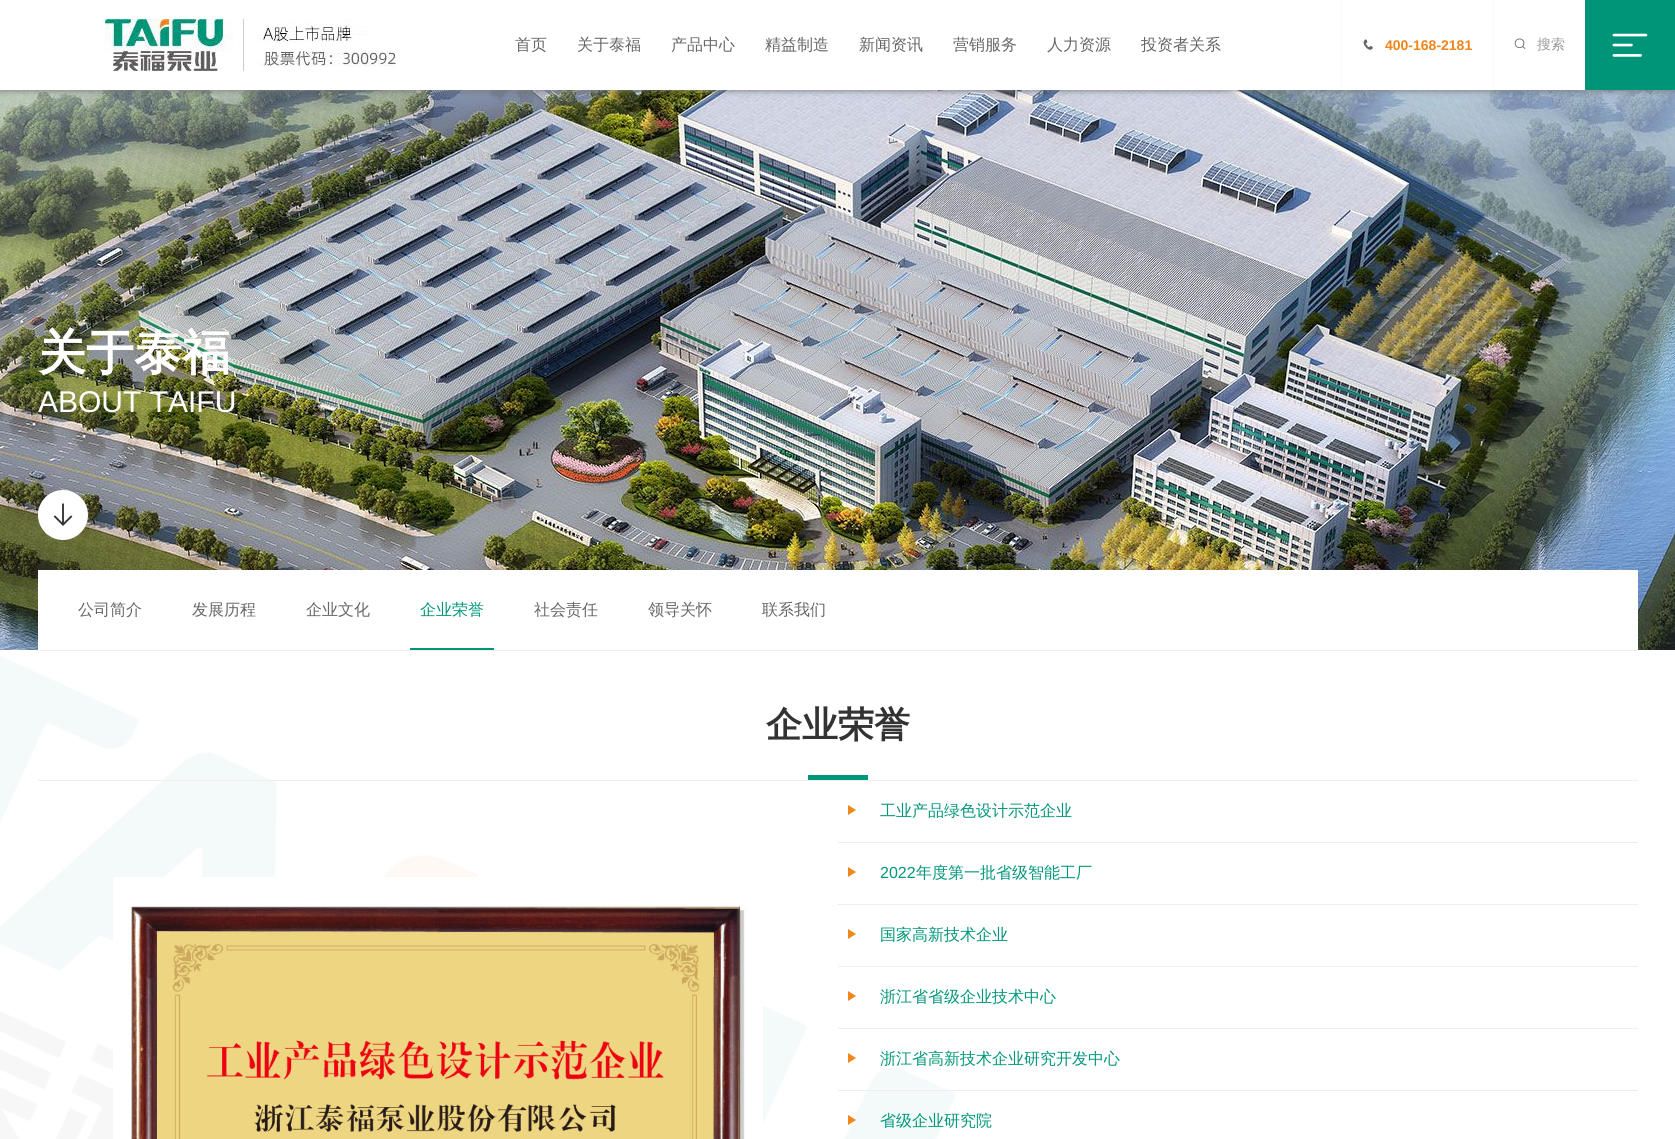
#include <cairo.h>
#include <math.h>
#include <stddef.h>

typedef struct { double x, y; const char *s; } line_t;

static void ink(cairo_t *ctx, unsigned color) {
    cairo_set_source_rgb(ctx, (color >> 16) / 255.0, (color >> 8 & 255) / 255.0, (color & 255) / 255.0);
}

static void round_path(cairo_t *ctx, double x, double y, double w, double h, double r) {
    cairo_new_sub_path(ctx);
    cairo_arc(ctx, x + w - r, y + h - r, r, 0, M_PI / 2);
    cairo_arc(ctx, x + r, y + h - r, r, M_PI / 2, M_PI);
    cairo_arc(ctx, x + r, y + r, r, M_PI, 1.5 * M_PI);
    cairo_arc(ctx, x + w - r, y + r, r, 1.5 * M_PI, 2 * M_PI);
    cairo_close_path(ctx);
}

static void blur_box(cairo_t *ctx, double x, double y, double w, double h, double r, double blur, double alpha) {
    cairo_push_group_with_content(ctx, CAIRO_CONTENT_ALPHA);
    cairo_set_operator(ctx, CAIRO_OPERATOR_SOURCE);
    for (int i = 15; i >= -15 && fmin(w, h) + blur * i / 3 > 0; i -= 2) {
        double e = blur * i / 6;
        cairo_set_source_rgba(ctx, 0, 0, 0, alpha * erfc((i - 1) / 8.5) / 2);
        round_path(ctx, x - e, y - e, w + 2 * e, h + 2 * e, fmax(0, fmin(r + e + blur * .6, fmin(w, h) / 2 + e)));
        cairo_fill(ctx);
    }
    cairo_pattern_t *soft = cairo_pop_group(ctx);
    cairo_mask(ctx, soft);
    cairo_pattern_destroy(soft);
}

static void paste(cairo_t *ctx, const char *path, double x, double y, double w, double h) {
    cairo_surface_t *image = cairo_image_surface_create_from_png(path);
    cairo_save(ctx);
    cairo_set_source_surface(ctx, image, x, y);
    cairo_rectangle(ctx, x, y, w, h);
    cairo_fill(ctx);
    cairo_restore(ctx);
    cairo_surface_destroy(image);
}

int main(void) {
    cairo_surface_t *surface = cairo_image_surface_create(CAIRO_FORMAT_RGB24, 1675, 1139);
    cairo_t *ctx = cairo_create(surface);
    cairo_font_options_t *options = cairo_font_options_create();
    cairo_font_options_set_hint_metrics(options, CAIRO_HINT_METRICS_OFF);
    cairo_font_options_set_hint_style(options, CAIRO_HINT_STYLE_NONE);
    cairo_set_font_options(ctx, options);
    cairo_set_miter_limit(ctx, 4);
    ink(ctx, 0xFFFFFF);
    cairo_paint(ctx);
    paste(ctx, "media/5.png", 0, 90, 1675, 560);
    cairo_save(ctx);
    cairo_rectangle(ctx, 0, 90, 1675, 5);
    cairo_clip(ctx);
    ink(ctx, 0x888888);
    blur_box(ctx, 0, 0, 1675, 90, 0, 2.5, 1);
    cairo_restore(ctx);
    paste(ctx, "media/1.png", 105, 19, 291, 52);
    cairo_select_font_face(ctx, "WenQuanYi Zen Hei Medium", CAIRO_FONT_SLANT_NORMAL, CAIRO_FONT_WEIGHT_NORMAL);
    cairo_set_font_size(ctx, 16);
    ink(ctx, 0x666666);
    {
        static const line_t items[] = {
            {515, 50, "首页"},
            {577, 50, "关于泰福"},
            {671, 50, "产品中心"},
            {765, 50, "精益制造"},
            {859, 50, "新闻资讯"},
            {953, 50, "营销服务"},
            {1047, 50, "人力资源"},
            {1141, 50, "投资者关系"},
        };
        for (size_t i = 0; i < sizeof items / sizeof *items; i++) {
            cairo_move_to(ctx, items[i].x, items[i].y);
            cairo_show_text(ctx, items[i].s);
        }
    }
    ink(ctx, 0xFAFAFA);
    cairo_rectangle(ctx, 1340, 0, 1, 90);
    cairo_fill(ctx);
    paste(ctx, "media/2.png", 1363, 39, 10, 11);
    cairo_select_font_face(ctx, "Liberation Sans", CAIRO_FONT_SLANT_NORMAL, CAIRO_FONT_WEIGHT_BOLD);
    cairo_set_font_size(ctx, 14);
    ink(ctx, 0xF08519);
    cairo_move_to(ctx, 1385, 50);
    cairo_show_text(ctx, "400-168-2181");
    ink(ctx, 0xFAFAFA);
    cairo_rectangle(ctx, 1492, 0, 1, 90);
    cairo_fill(ctx);
    paste(ctx, "media/3.png", 1514, 38, 12, 11);
    cairo_select_font_face(ctx, "WenQuanYi Zen Hei Medium", CAIRO_FONT_SLANT_NORMAL, CAIRO_FONT_WEIGHT_NORMAL);
    ink(ctx, 0x999999);
    cairo_move_to(ctx, 1537, 49);
    cairo_show_text(ctx, "搜索");
    ink(ctx, 0x009578);
    cairo_rectangle(ctx, 1585, 0, 90, 90);
    cairo_fill(ctx);
    paste(ctx, "media/4.png", 1612, 33, 36, 24);
    cairo_select_font_face(ctx, "WenQuanYi Zen Hei", CAIRO_FONT_SLANT_NORMAL, CAIRO_FONT_WEIGHT_BOLD);
    cairo_set_font_size(ctx, 48);
    ink(ctx, 0xFFFFFF);
    cairo_move_to(ctx, 38, 369);
    cairo_show_text(ctx, "关于泰福");
    cairo_select_font_face(ctx, "Liberation Sans", CAIRO_FONT_SLANT_NORMAL, CAIRO_FONT_WEIGHT_NORMAL);
    cairo_set_font_size(ctx, 30);
    cairo_move_to(ctx, 38, 412);
    cairo_show_text(ctx, "ABOUT TAIFU");
    ink(ctx, 0xEEEEEE);
    cairo_rectangle(ctx, 38, 650, 1600, 1);
    cairo_fill(ctx);
    ink(ctx, 0xFFFFFF);
    cairo_arc(ctx, 63, 515, 25, 0, 2 * M_PI);
    cairo_fill(ctx);
    paste(ctx, "media/6.png", 53, 503, 20, 23);
    cairo_rectangle(ctx, 38, 570, 1600, 80);
    cairo_fill(ctx);
    cairo_select_font_face(ctx, "WenQuanYi Zen Hei Medium", CAIRO_FONT_SLANT_NORMAL, CAIRO_FONT_WEIGHT_NORMAL);
    cairo_set_font_size(ctx, 16);
    ink(ctx, 0x666666);
    {
        static const line_t items[] = {
            {78, 615, "公司简介"},
            {192, 615, "发展历程"},
            {306, 615, "企业文化"},
        };
        for (size_t i = 0; i < sizeof items / sizeof *items; i++) {
            cairo_move_to(ctx, items[i].x, items[i].y);
            cairo_show_text(ctx, items[i].s);
        }
    }
    ink(ctx, 0x01967A);
    cairo_move_to(ctx, 420, 615);
    cairo_show_text(ctx, "企业荣誉");
    ink(ctx, 0x009578);
    cairo_rectangle(ctx, 410, 648, 84, 2);
    cairo_fill(ctx);
    ink(ctx, 0x666666);
    {
        static const line_t items[] = {
            {534, 615, "社会责任"},
            {648, 615, "领导关怀"},
            {762, 615, "联系我们"},
        };
        for (size_t i = 0; i < sizeof items / sizeof *items; i++) {
            cairo_move_to(ctx, items[i].x, items[i].y);
            cairo_show_text(ctx, items[i].s);
        }
    }
    paste(ctx, "media/7.png", 0, 656, 956, 483);
    ink(ctx, 0xEEEEEE);
    cairo_rectangle(ctx, 38, 780, 1600, 1);
    cairo_fill(ctx);
    cairo_select_font_face(ctx, "WenQuanYi Zen Hei", CAIRO_FONT_SLANT_NORMAL, CAIRO_FONT_WEIGHT_BOLD);
    cairo_set_font_size(ctx, 36);
    ink(ctx, 0x333333);
    cairo_move_to(ctx, 766, 737);
    cairo_show_text(ctx, "企业荣誉");
    ink(ctx, 0x01967A);
    cairo_rectangle(ctx, 808, 775, 60, 5);
    cairo_fill(ctx);
    paste(ctx, "media/8.png", 113, 877, 650, 262);
    ink(ctx, 0xEEEEEE);
    cairo_rectangle(ctx, 838, 842, 800, 1);
    cairo_fill(ctx);
    ink(ctx, 0xF1871C);
    cairo_new_path(ctx);
    cairo_move_to(ctx, 848, 815);
    cairo_line_to(ctx, 848, 805);
    cairo_line_to(ctx, 856, 810);
    cairo_close_path(ctx);
    cairo_fill(ctx);
    cairo_select_font_face(ctx, "WenQuanYi Zen Hei Medium", CAIRO_FONT_SLANT_NORMAL, CAIRO_FONT_WEIGHT_NORMAL);
    cairo_set_font_size(ctx, 16);
    ink(ctx, 0x01967A);
    cairo_move_to(ctx, 880, 816);
    cairo_show_text(ctx, "工业产品绿色设计示范企业");
    ink(ctx, 0xEEEEEE);
    cairo_rectangle(ctx, 838, 904, 800, 1);
    cairo_fill(ctx);
    ink(ctx, 0xF1871C);
    cairo_new_path(ctx);
    cairo_move_to(ctx, 848, 877);
    cairo_line_to(ctx, 848, 867);
    cairo_line_to(ctx, 856, 872);
    cairo_close_path(ctx);
    cairo_fill(ctx);
    cairo_select_font_face(ctx, "Liberation Sans", CAIRO_FONT_SLANT_NORMAL, CAIRO_FONT_WEIGHT_NORMAL);
    ink(ctx, 0x01967A);
    cairo_move_to(ctx, 880, 878);
    cairo_show_text(ctx, "2022");
    cairo_select_font_face(ctx, "WenQuanYi Zen Hei Medium", CAIRO_FONT_SLANT_NORMAL, CAIRO_FONT_WEIGHT_NORMAL);
    cairo_move_to(ctx, 916, 878);
    cairo_show_text(ctx, "年度第一批省级智能工厂");
    ink(ctx, 0xEEEEEE);
    cairo_rectangle(ctx, 838, 966, 800, 1);
    cairo_fill(ctx);
    ink(ctx, 0xF1871C);
    cairo_new_path(ctx);
    cairo_move_to(ctx, 848, 939);
    cairo_line_to(ctx, 848, 929);
    cairo_line_to(ctx, 856, 934);
    cairo_close_path(ctx);
    cairo_fill(ctx);
    ink(ctx, 0x01967A);
    cairo_move_to(ctx, 880, 940);
    cairo_show_text(ctx, "国家高新技术企业");
    ink(ctx, 0xEEEEEE);
    cairo_rectangle(ctx, 838, 1028, 800, 1);
    cairo_fill(ctx);
    ink(ctx, 0xF1871C);
    cairo_new_path(ctx);
    cairo_move_to(ctx, 848, 1001);
    cairo_line_to(ctx, 848, 991);
    cairo_line_to(ctx, 856, 996);
    cairo_close_path(ctx);
    cairo_fill(ctx);
    ink(ctx, 0x01967A);
    cairo_move_to(ctx, 880, 1002);
    cairo_show_text(ctx, "浙江省省级企业技术中心");
    ink(ctx, 0xEEEEEE);
    cairo_rectangle(ctx, 838, 1090, 800, 1);
    cairo_fill(ctx);
    ink(ctx, 0xF1871C);
    cairo_new_path(ctx);
    cairo_move_to(ctx, 848, 1063);
    cairo_line_to(ctx, 848, 1053);
    cairo_line_to(ctx, 856, 1058);
    cairo_close_path(ctx);
    cairo_fill(ctx);
    ink(ctx, 0x01967A);
    cairo_move_to(ctx, 880, 1064);
    cairo_show_text(ctx, "浙江省高新技术企业研究开发中心");
    ink(ctx, 0xF1871C);
    cairo_new_path(ctx);
    cairo_move_to(ctx, 848, 1125);
    cairo_line_to(ctx, 848, 1115);
    cairo_line_to(ctx, 856, 1120);
    cairo_close_path(ctx);
    cairo_fill(ctx);
    ink(ctx, 0x01967A);
    cairo_move_to(ctx, 880, 1126);
    cairo_show_text(ctx, "省级企业研究院");
    cairo_surface_write_to_png(surface, "image.png");
    cairo_font_options_destroy(options);
    cairo_destroy(ctx);
    cairo_surface_destroy(surface);
    return 0;
}
